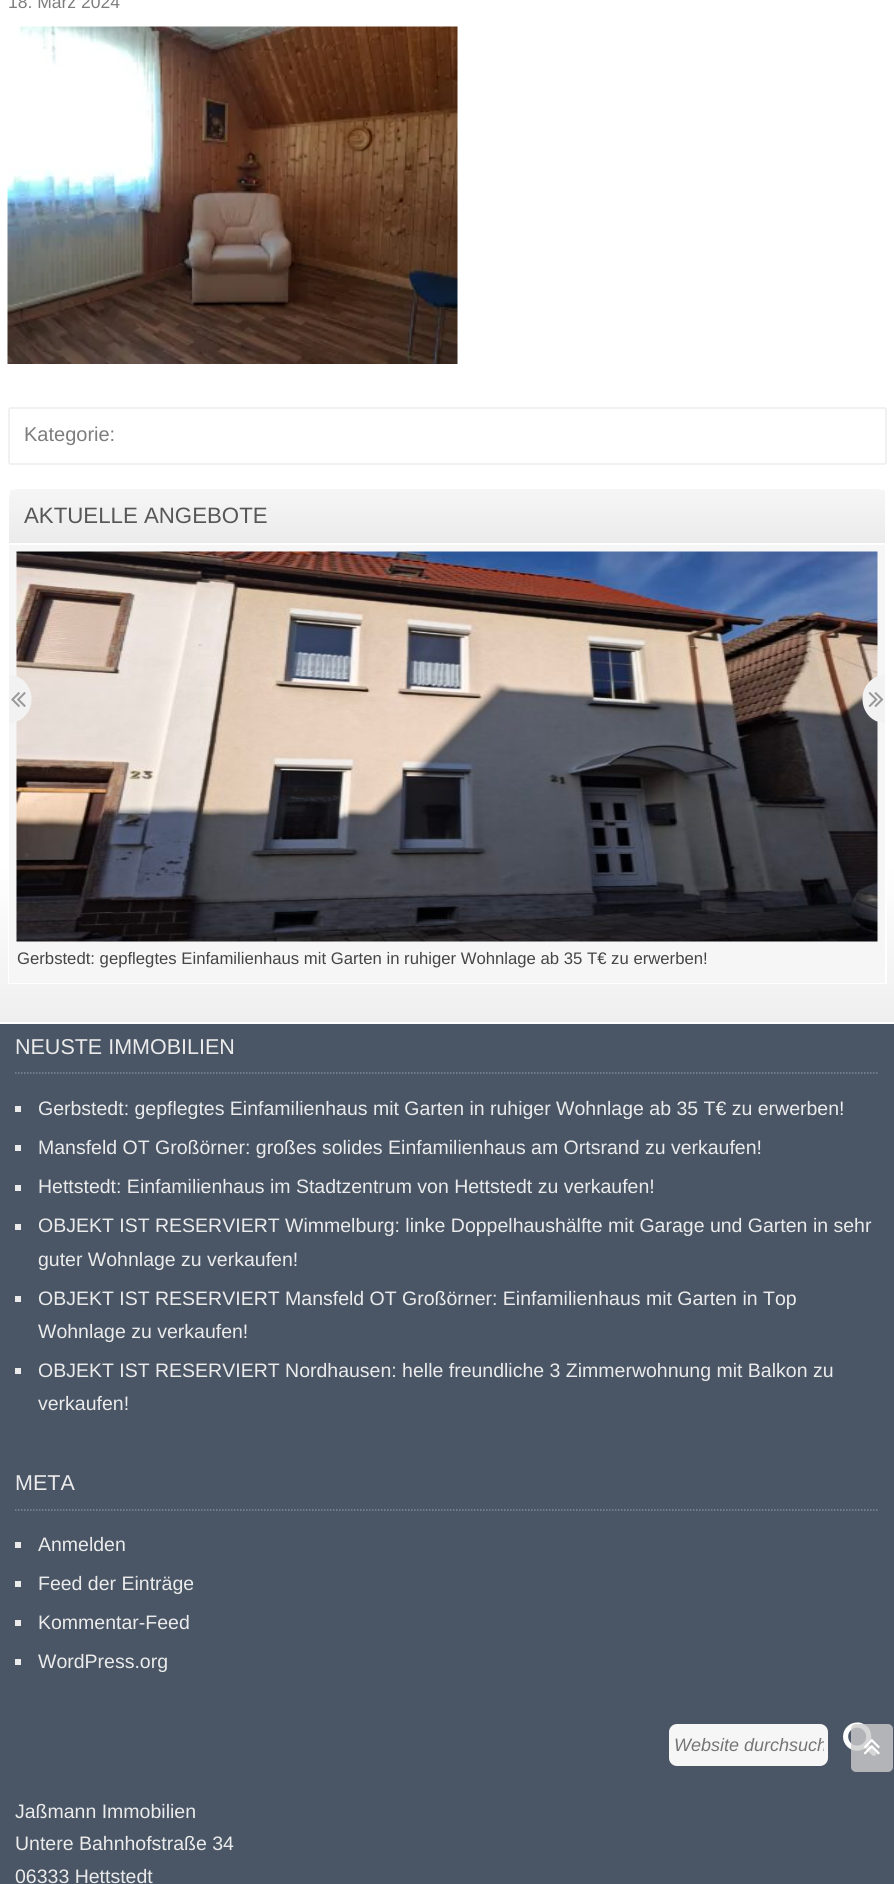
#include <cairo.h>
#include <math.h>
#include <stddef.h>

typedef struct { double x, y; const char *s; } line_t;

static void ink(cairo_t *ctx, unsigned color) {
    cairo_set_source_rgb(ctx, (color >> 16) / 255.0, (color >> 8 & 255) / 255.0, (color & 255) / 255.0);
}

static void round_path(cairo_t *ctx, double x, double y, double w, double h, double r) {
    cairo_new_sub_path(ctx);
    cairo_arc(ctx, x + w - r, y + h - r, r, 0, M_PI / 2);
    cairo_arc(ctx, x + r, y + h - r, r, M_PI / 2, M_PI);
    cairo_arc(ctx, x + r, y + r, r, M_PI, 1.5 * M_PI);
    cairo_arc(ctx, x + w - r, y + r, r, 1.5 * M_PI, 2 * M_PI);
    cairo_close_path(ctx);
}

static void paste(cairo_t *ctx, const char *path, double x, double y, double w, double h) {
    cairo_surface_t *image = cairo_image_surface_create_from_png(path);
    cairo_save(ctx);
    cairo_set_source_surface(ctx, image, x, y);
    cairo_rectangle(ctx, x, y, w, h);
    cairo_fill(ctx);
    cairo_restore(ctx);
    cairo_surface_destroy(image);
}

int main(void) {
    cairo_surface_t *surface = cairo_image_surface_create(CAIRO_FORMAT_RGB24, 894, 1884);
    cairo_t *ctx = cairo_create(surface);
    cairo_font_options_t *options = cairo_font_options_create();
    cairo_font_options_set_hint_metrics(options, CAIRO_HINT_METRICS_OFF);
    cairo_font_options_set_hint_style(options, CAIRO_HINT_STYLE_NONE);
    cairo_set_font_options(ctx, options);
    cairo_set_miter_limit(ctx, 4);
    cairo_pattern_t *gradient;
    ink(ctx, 0x4A5666);
    cairo_paint(ctx);
    gradient = cairo_pattern_create_linear(447, -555, 447, 1022);
    cairo_pattern_add_color_stop_rgba(gradient, 0.9, 1, 1, 1, 1);
    cairo_pattern_add_color_stop_rgba(gradient, 1, 0.937, 0.937, 0.937, 1);
    cairo_set_source(ctx, gradient);
    cairo_pattern_destroy(gradient);
    cairo_rectangle(ctx, 0, 0, 894, 1022);
    cairo_fill(ctx);
    cairo_select_font_face(ctx, "Liberation Sans", CAIRO_FONT_SLANT_NORMAL, CAIRO_FONT_WEIGHT_NORMAL);
    cairo_set_font_size(ctx, 17.5);
    ink(ctx, 0x7D7D7D);
    cairo_move_to(ctx, 8, 8);
    cairo_show_text(ctx, "18. März 2024");
    paste(ctx, "media/1.png", 7, 26, 451, 338);
    round_path(ctx, 9, 408, 877, 56, 2);
    ink(ctx, 0xF1F1F1);
    cairo_stroke(ctx);
    cairo_set_font_size(ctx, 20);
    ink(ctx, 0x7D7D7D);
    cairo_move_to(ctx, 24, 441);
    cairo_show_text(ctx, "Kategorie:");
    ink(ctx, 0xF6F6F6);
    cairo_rectangle(ctx, 10, 490, 875, 7);
    cairo_fill(ctx);
    cairo_rectangle(ctx, 9, 489, 877, 494);
    ink(ctx, 0xFFFFFF);
    cairo_stroke(ctx);
    gradient = cairo_pattern_create_linear(447, 489, 447, 543);
    cairo_pattern_add_color_stop_rgba(gradient, 0, 0.965, 0.965, 0.965, 1);
    cairo_pattern_add_color_stop_rgba(gradient, 1, 0.922, 0.922, 0.922, 1);
    cairo_set_source(ctx, gradient);
    cairo_pattern_destroy(gradient);
    cairo_new_path(ctx);
    cairo_move_to(ctx, 17, 489);
    cairo_line_to(ctx, 877, 489);
    cairo_curve_to(ctx, 881.5, 489, 885, 492.5, 885, 497);
    cairo_line_to(ctx, 885, 543);
    cairo_line_to(ctx, 9, 543);
    cairo_line_to(ctx, 9, 497);
    cairo_curve_to(ctx, 9, 492.5, 12.5, 489, 17, 489);
    cairo_close_path(ctx);
    cairo_fill(ctx);
    cairo_set_font_size(ctx, 22.25);
    ink(ctx, 0x575757);
    cairo_move_to(ctx, 24, 523);
    cairo_show_text(ctx, "AKTUELLE ANGEBOTE");
    ink(ctx, 0xF6F6F6);
    cairo_rectangle(ctx, 9, 545, 876, 438);
    cairo_fill(ctx);
    paste(ctx, "media/4.png", 16, 551, 862, 391);
    cairo_save(ctx);
    cairo_rectangle(ctx, 9, 545, 876, 438);
    cairo_clip(ctx);
    ink(ctx, 0xF2F2F2);
    cairo_new_path(ctx);
    cairo_move_to(ctx, 9, 675);
    cairo_curve_to(ctx, 21.5, 675, 31.5, 685.5, 31.5, 699);
    cairo_curve_to(ctx, 31.5, 712.5, 21.5, 723, 9, 723);
    cairo_curve_to(ctx, -3.5, 723, -13.5, 712.5, -13.5, 699);
    cairo_curve_to(ctx, -13.5, 685.5, -3.5, 675, 9, 675);
    cairo_close_path(ctx);
    cairo_fill(ctx);
    cairo_restore(ctx);
    paste(ctx, "media/2.png", 11, 692, 15, 15);
    cairo_save(ctx);
    cairo_rectangle(ctx, 9, 545, 876, 438);
    cairo_clip(ctx);
    ink(ctx, 0xF2F2F2);
    cairo_new_path(ctx);
    cairo_move_to(ctx, 885, 675);
    cairo_curve_to(ctx, 897.5, 675, 907.5, 685.5, 907.5, 699);
    cairo_curve_to(ctx, 907.5, 712.5, 897.5, 723, 885, 723);
    cairo_curve_to(ctx, 872.5, 723, 862.5, 712.5, 862.5, 699);
    cairo_curve_to(ctx, 862.5, 685.5, 872.5, 675, 885, 675);
    cairo_close_path(ctx);
    cairo_fill(ctx);
    cairo_restore(ctx);
    paste(ctx, "media/3.png", 868, 692, 16, 15);
    cairo_set_font_size(ctx, 16.7);
    ink(ctx, 0x454545);
    cairo_move_to(ctx, 17, 964);
    cairo_show_text(ctx, "Gerbstedt: gepflegtes Einfamilienhaus mit Garten in ruhiger Wohnlage ab 35 T€ zu erwerben!");
    paste(ctx, "media/6.png", 843, 1722, 34, 34);
    cairo_set_source_rgba(ctx, 0.8, 0.8, 0.8, 0.8);
    round_path(ctx, 851, 1724, 42, 48, 5);
    cairo_fill(ctx);
    paste(ctx, "media/5.png", 863, 1739, 17, 16);
    ink(ctx, 0xFFFFFF);
    cairo_rectangle(ctx, 0, 1022, 894, 2);
    cairo_fill(ctx);
    cairo_new_path(ctx);
    cairo_move_to(ctx, 15, 1073);
    cairo_line_to(ctx, 879, 1073);
    ink(ctx, 0x808994);
    cairo_set_line_width(ctx, 1.5);
    cairo_set_dash(ctx, (double[]){1.5, 1.5}, 2, 0);
    cairo_stroke(ctx);
    cairo_set_font_size(ctx, 21.5);
    ink(ctx, 0xEBEBEB);
    cairo_move_to(ctx, 15, 1054);
    cairo_show_text(ctx, "NEUSTE IMMOBILIEN");
    cairo_rectangle(ctx, 15, 1106, 6, 6);
    cairo_fill(ctx);
    cairo_set_font_size(ctx, 19.5);
    cairo_move_to(ctx, 38, 1115);
    cairo_show_text(ctx, "Gerbstedt: gepflegtes Einfamilienhaus mit Garten in ruhiger Wohnlage ab 35 T€ zu erwerben!");
    cairo_rectangle(ctx, 15, 1145, 6, 6);
    cairo_fill(ctx);
    cairo_move_to(ctx, 38, 1154);
    cairo_show_text(ctx, "Mansfeld OT Großörner: großes solides Einfamilienhaus am Ortsrand zu verkaufen!");
    cairo_rectangle(ctx, 15, 1185, 6, 6);
    cairo_fill(ctx);
    cairo_move_to(ctx, 38, 1193);
    cairo_show_text(ctx, "Hettstedt: Einfamilienhaus im Stadtzentrum von Hettstedt zu verkaufen!");
    cairo_rectangle(ctx, 15, 1224, 6, 6);
    cairo_fill(ctx);
    cairo_move_to(ctx, 38, 1232);
    cairo_show_text(ctx, "OBJEKT IST RESERVIERT Wimmelburg: linke Doppelhaushälfte mit Garage und Garten in sehr");
    cairo_move_to(ctx, 38, 1266);
    cairo_show_text(ctx, "guter Wohnlage zu verkaufen!");
    cairo_rectangle(ctx, 15, 1296, 6, 6);
    cairo_fill(ctx);
    cairo_move_to(ctx, 38, 1305);
    cairo_show_text(ctx, "OBJEKT IST RESERVIERT Mansfeld OT Großörner: Einfamilienhaus mit Garten in Top");
    cairo_move_to(ctx, 38, 1338);
    cairo_show_text(ctx, "Wohnlage zu verkaufen!");
    cairo_rectangle(ctx, 15, 1368, 6, 6);
    cairo_fill(ctx);
    cairo_move_to(ctx, 38, 1377);
    cairo_show_text(ctx, "OBJEKT IST RESERVIERT Nordhausen: helle freundliche 3 Zimmerwohnung mit Balkon zu");
    cairo_move_to(ctx, 38, 1410);
    cairo_show_text(ctx, "verkaufen!");
    cairo_new_path(ctx);
    cairo_move_to(ctx, 15, 1510);
    cairo_line_to(ctx, 879, 1510);
    ink(ctx, 0x808994);
    cairo_stroke(ctx);
    cairo_set_font_size(ctx, 21.5);
    ink(ctx, 0xEBEBEB);
    cairo_move_to(ctx, 15, 1490);
    cairo_show_text(ctx, "META");
    cairo_rectangle(ctx, 15, 1542, 6, 6);
    cairo_fill(ctx);
    cairo_set_font_size(ctx, 19.5);
    cairo_move_to(ctx, 38, 1551);
    cairo_show_text(ctx, "Anmelden");
    cairo_rectangle(ctx, 15, 1581, 6, 6);
    cairo_fill(ctx);
    cairo_move_to(ctx, 38, 1590);
    cairo_show_text(ctx, "Feed der Einträge");
    cairo_rectangle(ctx, 15, 1620, 6, 6);
    cairo_fill(ctx);
    cairo_move_to(ctx, 38, 1629);
    cairo_show_text(ctx, "Kommentar-Feed");
    cairo_rectangle(ctx, 15, 1659, 6, 6);
    cairo_fill(ctx);
    cairo_move_to(ctx, 38, 1668);
    cairo_show_text(ctx, "WordPress.org");
    ink(ctx, 0xF6F6F6);
    round_path(ctx, 669, 1724, 159, 42, 8);
    cairo_fill(ctx);
    cairo_save(ctx);
    cairo_rectangle(ctx, 674, 1734, 150, 21);
    cairo_clip(ctx);
    cairo_select_font_face(ctx, "Liberation Sans", CAIRO_FONT_SLANT_ITALIC, CAIRO_FONT_WEIGHT_NORMAL);
    cairo_set_font_size(ctx, 18);
    ink(ctx, 0x757575);
    cairo_move_to(ctx, 674, 1751);
    cairo_show_text(ctx, "Website durchsuch");
    cairo_restore(ctx);
    ink(ctx, 0xEBEBEB);
    {
        static const line_t items[] = {
            {15, 1818, "Jaßmann Immobilien"},
            {15, 1850, "Untere Bahnhofstraße 34"},
            {15, 1883, "06333 Hettstedt"},
        };
        for (size_t i = 0; i < sizeof items / sizeof *items; i++) {
            cairo_move_to(ctx, items[i].x, items[i].y);
            cairo_show_text(ctx, items[i].s);
        }
    }
    cairo_surface_write_to_png(surface, "image.png");
    cairo_font_options_destroy(options);
    cairo_destroy(ctx);
    cairo_surface_destroy(surface);
    return 0;
}
